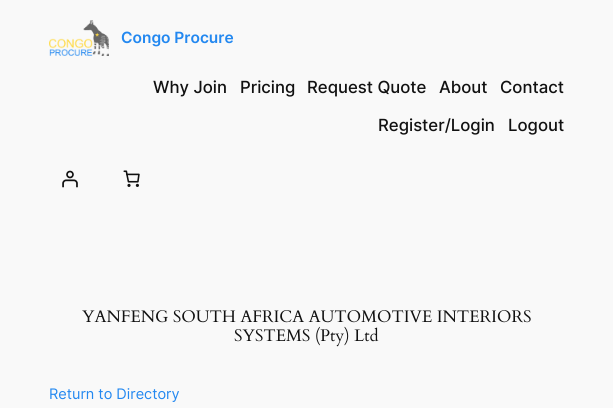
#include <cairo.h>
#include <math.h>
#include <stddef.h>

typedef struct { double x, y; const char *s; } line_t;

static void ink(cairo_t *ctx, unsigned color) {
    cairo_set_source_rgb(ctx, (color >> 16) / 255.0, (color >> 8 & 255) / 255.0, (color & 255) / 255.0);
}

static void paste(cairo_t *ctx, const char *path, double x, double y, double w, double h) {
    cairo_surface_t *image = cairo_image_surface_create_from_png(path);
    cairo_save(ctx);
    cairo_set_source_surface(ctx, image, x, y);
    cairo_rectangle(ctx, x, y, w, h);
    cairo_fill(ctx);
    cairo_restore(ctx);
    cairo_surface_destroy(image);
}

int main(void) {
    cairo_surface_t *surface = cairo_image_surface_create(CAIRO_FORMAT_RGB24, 613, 408);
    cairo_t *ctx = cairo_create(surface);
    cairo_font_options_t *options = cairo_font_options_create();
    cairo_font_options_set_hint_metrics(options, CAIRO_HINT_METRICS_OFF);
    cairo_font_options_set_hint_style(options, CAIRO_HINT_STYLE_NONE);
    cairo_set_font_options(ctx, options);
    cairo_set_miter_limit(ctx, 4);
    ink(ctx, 0xF9F9F9);
    cairo_paint(ctx);
    paste(ctx, "media/1.png", 49, 20, 60, 36);
    cairo_select_font_face(ctx, "Inter SemiBold", CAIRO_FONT_SLANT_NORMAL, CAIRO_FONT_WEIGHT_NORMAL);
    cairo_set_font_size(ctx, 15.5);
    ink(ctx, 0x2388F0);
    cairo_move_to(ctx, 121, 43);
    cairo_show_text(ctx, "Congo Procure");
    cairo_select_font_face(ctx, "Inter Medium", CAIRO_FONT_SLANT_NORMAL, CAIRO_FONT_WEIGHT_NORMAL);
    cairo_set_font_size(ctx, 16.75);
    ink(ctx, 0x111111);
    {
        static const line_t items[] = {
            {153, 93, "Why Join"},
            {240, 93, "Pricing"},
            {307, 93, "Request Quote"},
            {439, 93, "About"},
            {500, 93, "Contact"},
            {378, 131, "Register/Login"},
            {508, 131, "Logout"},
        };
        for (size_t i = 0; i < sizeof items / sizeof *items; i++) {
            cairo_move_to(ctx, items[i].x, items[i].y);
            cairo_show_text(ctx, items[i].s);
        }
    }
    paste(ctx, "media/2.png", 62, 170, 16, 18);
    paste(ctx, "media/3.png", 123, 170, 17, 17);
    paste(ctx, "media/4.png", 82, 310, 449, 13);
    paste(ctx, "media/5.png", 234, 326, 145, 21);
    cairo_select_font_face(ctx, "Inter", CAIRO_FONT_SLANT_NORMAL, CAIRO_FONT_WEIGHT_NORMAL);
    cairo_set_font_size(ctx, 14.5);
    ink(ctx, 0x2388F0);
    cairo_move_to(ctx, 49, 399);
    cairo_show_text(ctx, "Return to Directory");
    cairo_surface_write_to_png(surface, "image.png");
    cairo_font_options_destroy(options);
    cairo_destroy(ctx);
    cairo_surface_destroy(surface);
    return 0;
}
